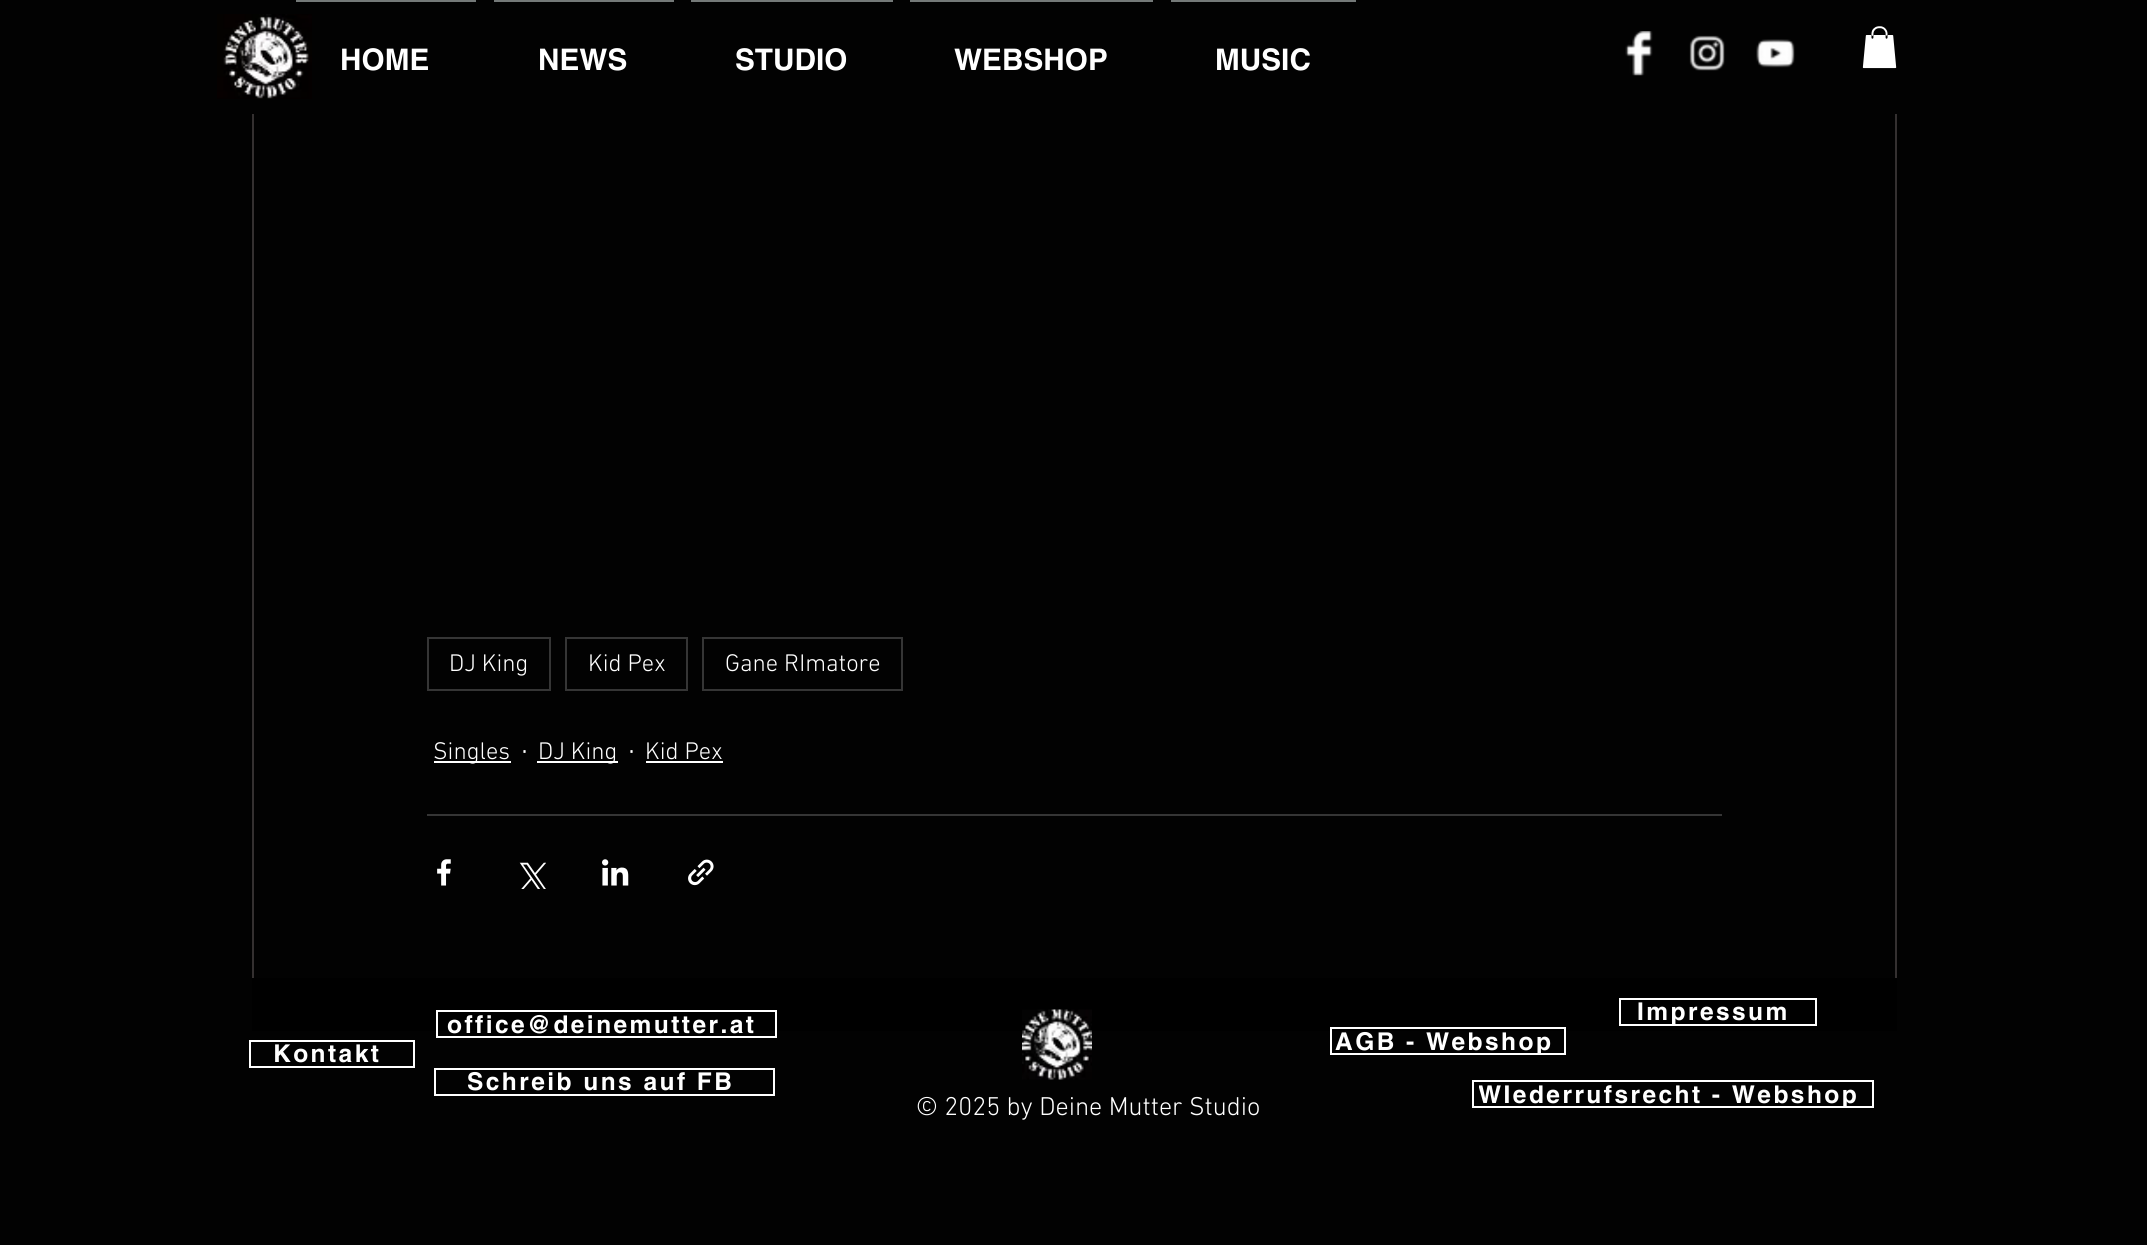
#include <cairo.h>
#include <math.h>
#include <stddef.h>


static void ink(cairo_t *ctx, unsigned color) {
    cairo_set_source_rgb(ctx, (color >> 16) / 255.0, (color >> 8 & 255) / 255.0, (color & 255) / 255.0);
}

static void write_spaced(cairo_t *ctx, double x, double y, const char *s, double letter, double word) {
    cairo_move_to(ctx, x, y);
    while (*s) {
        char ch[5] = {0};
        int n = 0;
        do ch[n++] = *s++; while ((*s & 0xC0) == 0x80);
        cairo_show_text(ctx, ch);
        cairo_rel_move_to(ctx, letter + word * (*ch == ' '), 0);
    }
}

static void paste(cairo_t *ctx, const char *path, double x, double y, double w, double h) {
    cairo_surface_t *image = cairo_image_surface_create_from_png(path);
    cairo_save(ctx);
    cairo_set_source_surface(ctx, image, x, y);
    cairo_rectangle(ctx, x, y, w, h);
    cairo_fill(ctx);
    cairo_restore(ctx);
    cairo_surface_destroy(image);
}

int main(void) {
    cairo_surface_t *surface = cairo_image_surface_create(CAIRO_FORMAT_RGB24, 2147, 1245);
    cairo_t *ctx = cairo_create(surface);
    cairo_font_options_t *options = cairo_font_options_create();
    cairo_font_options_set_hint_metrics(options, CAIRO_HINT_METRICS_OFF);
    cairo_font_options_set_hint_style(options, CAIRO_HINT_STYLE_NONE);
    cairo_set_font_options(ctx, options);
    cairo_set_miter_limit(ctx, 4);
    ink(ctx, 0x020202);
    cairo_paint(ctx);
    cairo_rectangle(ctx, 253, -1, 1643, 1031);
    ink(ctx, 0x343030);
    cairo_stroke(ctx);
    ink(ctx, 0x020202);
    cairo_rectangle(ctx, 252, 0, 1645, 114);
    cairo_fill(ctx);
    paste(ctx, "media/1.png", 217, 14, 95, 85);
    ink(ctx, 0x747978);
    cairo_rectangle(ctx, 296, 0, 180, 2);
    cairo_fill(ctx);
    cairo_select_font_face(ctx, "helvetica", CAIRO_FONT_SLANT_NORMAL, CAIRO_FONT_WEIGHT_BOLD);
    cairo_set_font_size(ctx, 29.75);
    ink(ctx, 0xFFFFFF);
    cairo_move_to(ctx, 340, 70);
    cairo_show_text(ctx, "HOME");
    ink(ctx, 0x747978);
    cairo_rectangle(ctx, 494, 0, 180, 2);
    cairo_fill(ctx);
    ink(ctx, 0xFFFFFF);
    cairo_move_to(ctx, 538, 70);
    cairo_show_text(ctx, "NEWS");
    ink(ctx, 0x747978);
    cairo_rectangle(ctx, 691, 0, 202, 2);
    cairo_fill(ctx);
    ink(ctx, 0xFFFFFF);
    cairo_move_to(ctx, 735, 70);
    cairo_show_text(ctx, "STUDIO");
    ink(ctx, 0x747978);
    cairo_rectangle(ctx, 910, 0, 243, 2);
    cairo_fill(ctx);
    ink(ctx, 0xFFFFFF);
    cairo_move_to(ctx, 954, 70);
    cairo_show_text(ctx, "WEBSHOP");
    ink(ctx, 0x747978);
    cairo_rectangle(ctx, 1171, 0, 185, 2);
    cairo_fill(ctx);
    ink(ctx, 0xFFFFFF);
    cairo_move_to(ctx, 1215, 70);
    cairo_show_text(ctx, "MUSIC");
    paste(ctx, "media/2.png", 1625, 31, 28, 45);
    paste(ctx, "media/3.png", 1689, 35, 36, 36);
    paste(ctx, "media/4.png", 1756, 39, 39, 29);
    paste(ctx, "media/5.png", 1862, 26, 35, 43);
    cairo_rectangle(ctx, 428, 638, 122, 52);
    ink(ctx, 0x353535);
    cairo_stroke(ctx);
    cairo_select_font_face(ctx, "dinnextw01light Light", CAIRO_FONT_SLANT_NORMAL, CAIRO_FONT_WEIGHT_NORMAL);
    cairo_set_font_size(ctx, 24.5);
    ink(ctx, 0xFFFFFF);
    cairo_move_to(ctx, 449, 671);
    cairo_show_text(ctx, "DJ King");
    cairo_rectangle(ctx, 566, 638, 121, 52);
    ink(ctx, 0x353535);
    cairo_stroke(ctx);
    ink(ctx, 0xFFFFFF);
    cairo_move_to(ctx, 588, 671);
    cairo_show_text(ctx, "Kid Pex");
    cairo_rectangle(ctx, 703, 638, 199, 52);
    ink(ctx, 0x353535);
    cairo_stroke(ctx);
    ink(ctx, 0xFFFFFF);
    cairo_move_to(ctx, 725, 671);
    cairo_show_text(ctx, "Gane RImatore");
    cairo_rectangle(ctx, 434, 761, 77, 2);
    cairo_fill(ctx);
    cairo_move_to(ctx, 433, 759);
    cairo_show_text(ctx, "Singles");
    cairo_set_font_size(ctx, 32);
    cairo_move_to(ctx, 521, 760);
    cairo_show_text(ctx, "·");
    cairo_rectangle(ctx, 537, 761, 81, 2);
    cairo_fill(ctx);
    cairo_set_font_size(ctx, 24.5);
    cairo_move_to(ctx, 538, 759);
    cairo_show_text(ctx, "DJ King");
    cairo_set_font_size(ctx, 32);
    cairo_move_to(ctx, 628, 760);
    cairo_show_text(ctx, "·");
    cairo_set_font_size(ctx, 24.5);
    cairo_move_to(ctx, 645, 759);
    cairo_show_text(ctx, "Kid Pex");
    cairo_rectangle(ctx, 646, 761, 77, 2);
    cairo_fill(ctx);
    ink(ctx, 0x353535);
    cairo_rectangle(ctx, 427, 814, 1295, 2);
    cairo_fill(ctx);
    paste(ctx, "media/6.png", 437, 859, 14, 27);
    paste(ctx, "media/7.png", 519, 862, 27, 27);
    paste(ctx, "media/8.png", 602, 859, 27, 27);
    paste(ctx, "media/9.png", 688, 859, 26, 27);
    ink(ctx, 0x000000);
    cairo_rectangle(ctx, 252, 978, 1645, 53);
    cairo_fill(ctx);
    cairo_rectangle(ctx, 437, 1011, 339, 26);
    ink(ctx, 0xFFFFFF);
    cairo_stroke(ctx);
    cairo_select_font_face(ctx, "helvetica", CAIRO_FONT_SLANT_NORMAL, CAIRO_FONT_WEIGHT_BOLD);
    write_spaced(ctx, 447, 1033, "office@deinemutter.at", 2.45, 0);
    paste(ctx, "media/10.png", 1022, 1009, 70, 71);
    cairo_rectangle(ctx, 1620, 999, 196, 26);
    cairo_stroke(ctx);
    cairo_save(ctx);
    cairo_rectangle(ctx, 1636, 999, 154, 25);
    cairo_clip(ctx);
    write_spaced(ctx, 1637, 1020, "Impressum", 2.45, 0);
    cairo_restore(ctx);
    cairo_rectangle(ctx, 250, 1041, 164, 26);
    cairo_stroke(ctx);
    write_spaced(ctx, 273, 1062, "Kontakt", 2.45, 0);
    cairo_rectangle(ctx, 1331, 1028, 234, 26);
    cairo_stroke(ctx);
    cairo_save(ctx);
    cairo_rectangle(ctx, 1335, 1029, 217, 25);
    cairo_clip(ctx);
    write_spaced(ctx, 1335, 1050, "AGB - Webshop", 2.45, 0);
    cairo_restore(ctx);
    cairo_rectangle(ctx, 435, 1069, 339, 26);
    cairo_stroke(ctx);
    write_spaced(ctx, 467, 1090, "Schreib uns auf FB", 2.45, 0);
    cairo_select_font_face(ctx, "dinnextw01light Light", CAIRO_FONT_SLANT_NORMAL, CAIRO_FONT_WEIGHT_NORMAL);
    cairo_set_font_size(ctx, 26.25);
    cairo_move_to(ctx, 916, 1115);
    cairo_show_text(ctx, "© 2025 by Deine Mutter Studio");
    cairo_rectangle(ctx, 1473, 1081, 400, 26);
    cairo_stroke(ctx);
    cairo_save(ctx);
    cairo_rectangle(ctx, 1479, 1082, 380, 24);
    cairo_clip(ctx);
    cairo_select_font_face(ctx, "helvetica", CAIRO_FONT_SLANT_NORMAL, CAIRO_FONT_WEIGHT_BOLD);
    cairo_set_font_size(ctx, 24.5);
    write_spaced(ctx, 1478, 1103, "WIederrufsrecht - Webshop", 2.45, 0);
    cairo_restore(ctx);
    cairo_surface_write_to_png(surface, "image.png");
    cairo_font_options_destroy(options);
    cairo_destroy(ctx);
    cairo_surface_destroy(surface);
    return 0;
}
